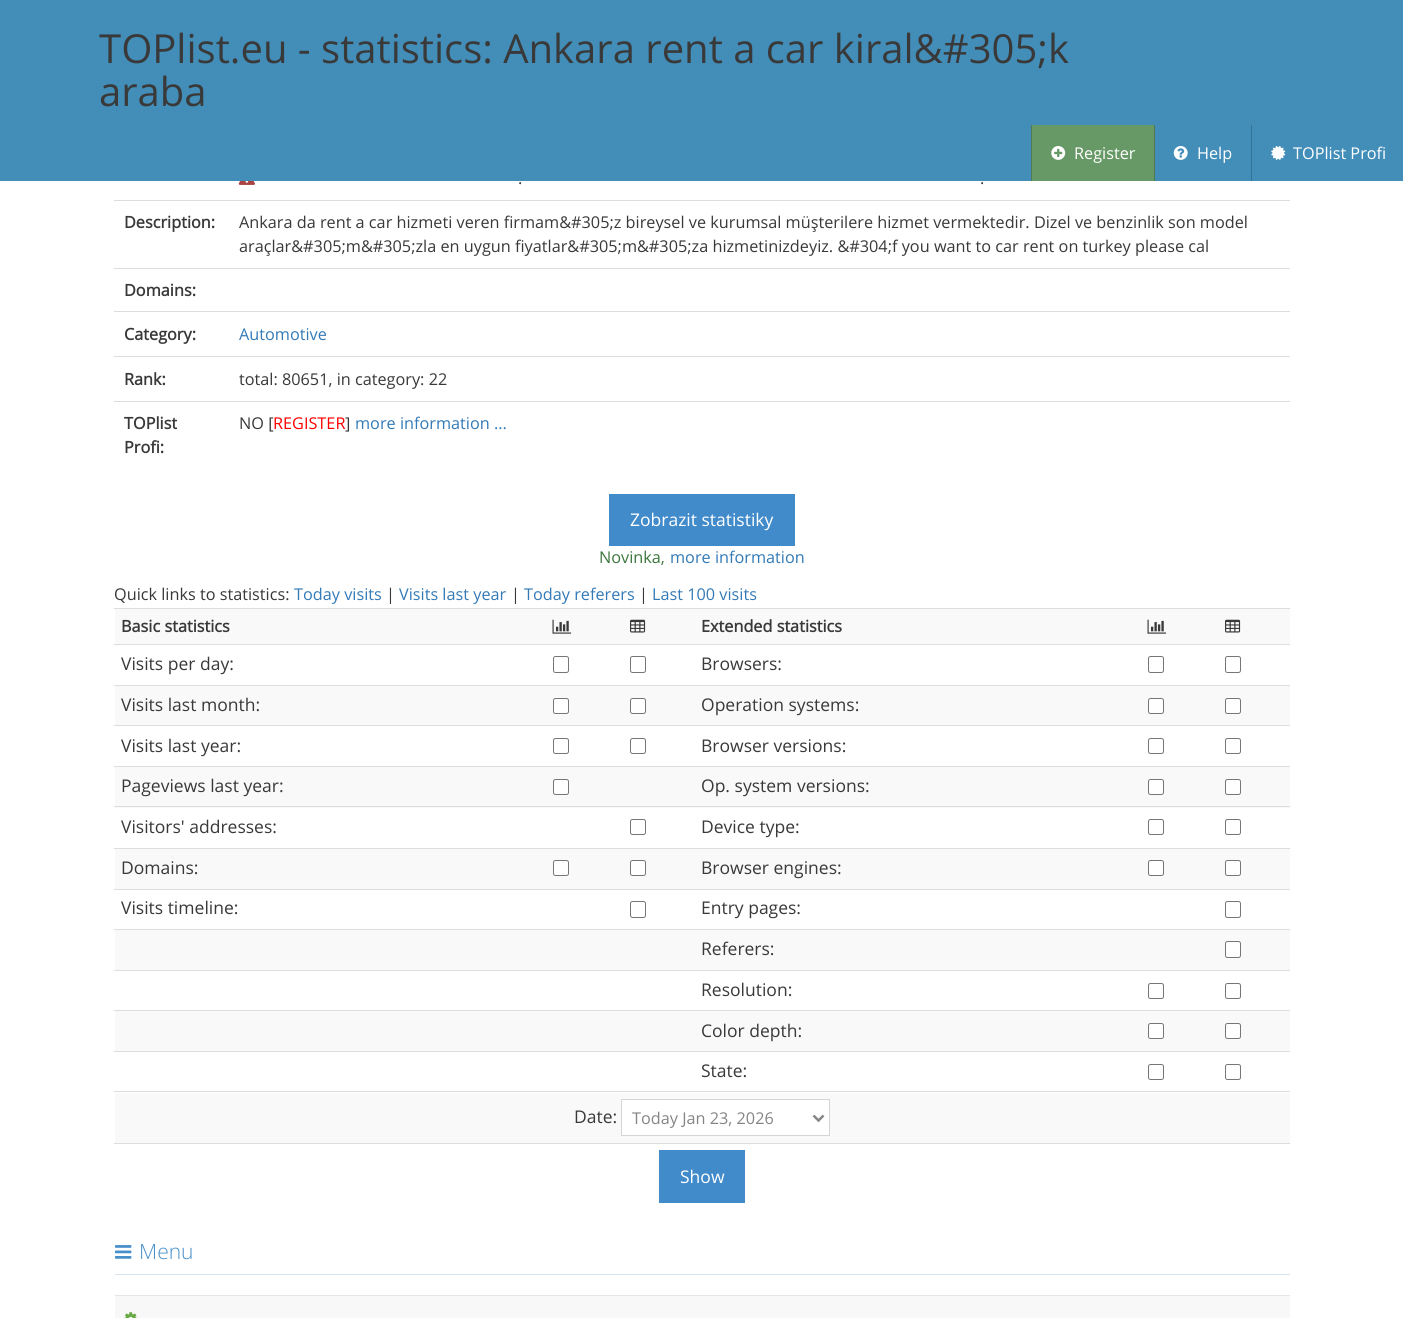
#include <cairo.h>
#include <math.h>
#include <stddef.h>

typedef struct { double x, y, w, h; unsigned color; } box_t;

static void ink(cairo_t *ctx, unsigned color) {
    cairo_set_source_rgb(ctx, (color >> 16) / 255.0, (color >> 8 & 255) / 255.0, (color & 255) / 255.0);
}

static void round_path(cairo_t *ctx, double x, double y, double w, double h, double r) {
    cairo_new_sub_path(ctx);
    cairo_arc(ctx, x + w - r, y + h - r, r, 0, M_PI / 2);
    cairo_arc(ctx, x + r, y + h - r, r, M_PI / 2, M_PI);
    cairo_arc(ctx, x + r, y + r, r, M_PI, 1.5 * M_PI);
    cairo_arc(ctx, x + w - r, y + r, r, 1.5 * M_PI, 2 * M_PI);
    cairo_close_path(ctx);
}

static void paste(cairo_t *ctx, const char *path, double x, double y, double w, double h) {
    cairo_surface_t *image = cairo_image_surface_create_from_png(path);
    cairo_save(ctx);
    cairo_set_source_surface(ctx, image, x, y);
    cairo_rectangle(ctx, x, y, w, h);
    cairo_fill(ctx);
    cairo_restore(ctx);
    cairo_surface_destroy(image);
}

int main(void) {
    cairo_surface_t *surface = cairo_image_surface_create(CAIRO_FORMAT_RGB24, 1403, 1318);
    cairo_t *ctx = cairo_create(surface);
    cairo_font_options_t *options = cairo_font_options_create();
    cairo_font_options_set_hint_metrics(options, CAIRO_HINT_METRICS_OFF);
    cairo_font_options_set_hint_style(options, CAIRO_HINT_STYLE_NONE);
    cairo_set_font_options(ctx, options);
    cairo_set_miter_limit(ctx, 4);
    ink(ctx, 0xFFFFFF);
    cairo_paint(ctx);
    ink(ctx, 0x438EB9);
    cairo_rectangle(ctx, 0, 0, 1403, 181);
    cairo_fill(ctx);
    cairo_select_font_face(ctx, "Open Sans", CAIRO_FONT_SLANT_NORMAL, CAIRO_FONT_WEIGHT_NORMAL);
    cairo_set_font_size(ctx, 40);
    ink(ctx, 0x393939);
    cairo_move_to(ctx, 99, 63);
    cairo_show_text(ctx, "TOPlist.eu - statistics: Ankara rent a car kiral&#305;k");
    cairo_move_to(ctx, 99, 106);
    cairo_show_text(ctx, "araba");
    {
        static const box_t items[] = {
            {1032, 125, 122, 56, 0x669966},
            {1154, 125, 1, 56, 0x527A52},
            {1031, 125, 1, 56, 0x527A52},
        };
        for (size_t i = 0; i < sizeof items / sizeof *items; i++) {
            ink(ctx, items[i].color);
            cairo_rectangle(ctx, items[i].x, items[i].y, items[i].w, items[i].h);
            cairo_fill(ctx);
        }
    }
    paste(ctx, "media/1.png", 1051, 146, 15, 14);
    cairo_set_font_size(ctx, 16.25);
    ink(ctx, 0xFFFFFF);
    cairo_move_to(ctx, 1074, 159);
    cairo_show_text(ctx, "Register");
    ink(ctx, 0x367294);
    cairo_rectangle(ctx, 1251, 125, 1, 56);
    cairo_fill(ctx);
    paste(ctx, "media/2.png", 1173, 146, 15, 14);
    ink(ctx, 0xFFFFFF);
    cairo_move_to(ctx, 1197, 159);
    cairo_show_text(ctx, "Help");
    paste(ctx, "media/3.png", 1271, 146, 15, 14);
    cairo_move_to(ctx, 1293, 159);
    cairo_show_text(ctx, "TOPlist Profi");
    paste(ctx, "media/4.png", 238, 181, 17, 4);
    ink(ctx, 0x393939);
    cairo_move_to(ctx, 518, 184);
    cairo_show_text(ctx, ".");
    cairo_move_to(ctx, 980, 184);
    cairo_show_text(ctx, ".");
    cairo_select_font_face(ctx, "Open Sans", CAIRO_FONT_SLANT_NORMAL, CAIRO_FONT_WEIGHT_BOLD);
    cairo_move_to(ctx, 124, 228);
    cairo_show_text(ctx, "Description:");
    ink(ctx, 0xDDDDDD);
    cairo_rectangle(ctx, 114, 200, 1176, 1);
    cairo_fill(ctx);
    cairo_select_font_face(ctx, "Open Sans", CAIRO_FONT_SLANT_NORMAL, CAIRO_FONT_WEIGHT_NORMAL);
    ink(ctx, 0x393939);
    cairo_move_to(ctx, 239, 228);
    cairo_show_text(ctx, "Ankara da rent a car hizmeti veren firmam&#305;z bireysel ve kurumsal müşterilere hizmet vermektedir. Dizel ve benzinlik son model");
    cairo_move_to(ctx, 239, 252);
    cairo_show_text(ctx, "araçlar&#305;m&#305;zla en uygun fiyatlar&#305;m&#305;za hizmetinizdeyiz. &#304;f you want to car rent on turkey please cal");
    ink(ctx, 0xDDDDDD);
    cairo_rectangle(ctx, 114, 268, 1176, 1);
    cairo_fill(ctx);
    cairo_select_font_face(ctx, "Open Sans", CAIRO_FONT_SLANT_NORMAL, CAIRO_FONT_WEIGHT_BOLD);
    ink(ctx, 0x393939);
    cairo_move_to(ctx, 124, 296);
    cairo_show_text(ctx, "Domains:");
    cairo_move_to(ctx, 124, 340);
    cairo_show_text(ctx, "Category:");
    ink(ctx, 0xDDDDDD);
    cairo_rectangle(ctx, 114, 311, 1176, 1);
    cairo_fill(ctx);
    cairo_select_font_face(ctx, "Open Sans", CAIRO_FONT_SLANT_NORMAL, CAIRO_FONT_WEIGHT_NORMAL);
    ink(ctx, 0x337AB7);
    cairo_move_to(ctx, 239, 340);
    cairo_show_text(ctx, "Automotive");
    cairo_select_font_face(ctx, "Open Sans", CAIRO_FONT_SLANT_NORMAL, CAIRO_FONT_WEIGHT_BOLD);
    ink(ctx, 0x393939);
    cairo_move_to(ctx, 124, 385);
    cairo_show_text(ctx, "Rank:");
    ink(ctx, 0xDDDDDD);
    cairo_rectangle(ctx, 114, 356, 1176, 1);
    cairo_fill(ctx);
    cairo_select_font_face(ctx, "Open Sans", CAIRO_FONT_SLANT_NORMAL, CAIRO_FONT_WEIGHT_NORMAL);
    ink(ctx, 0x393939);
    cairo_move_to(ctx, 239, 385);
    cairo_show_text(ctx, "total: 80651, in category: 22");
    cairo_select_font_face(ctx, "Open Sans", CAIRO_FONT_SLANT_NORMAL, CAIRO_FONT_WEIGHT_BOLD);
    cairo_move_to(ctx, 124, 429);
    cairo_show_text(ctx, "TOPlist");
    cairo_move_to(ctx, 124, 453);
    cairo_show_text(ctx, "Profi:");
    ink(ctx, 0xDDDDDD);
    cairo_rectangle(ctx, 114, 401, 1176, 1);
    cairo_fill(ctx);
    cairo_select_font_face(ctx, "Open Sans", CAIRO_FONT_SLANT_NORMAL, CAIRO_FONT_WEIGHT_NORMAL);
    ink(ctx, 0x393939);
    cairo_move_to(ctx, 239, 429);
    cairo_show_text(ctx, "NO [");
    ink(ctx, 0xFF0000);
    cairo_move_to(ctx, 273, 429);
    cairo_show_text(ctx, "REGISTER");
    ink(ctx, 0x393939);
    cairo_move_to(ctx, 345, 429);
    cairo_show_text(ctx, "]");
    ink(ctx, 0x337AB7);
    cairo_move_to(ctx, 355, 429);
    cairo_show_text(ctx, "more information ...");
    ink(ctx, 0x428BCA);
    cairo_rectangle(ctx, 609, 494, 186, 52);
    cairo_fill(ctx);
    cairo_set_font_size(ctx, 17.5);
    ink(ctx, 0xFFFFFF);
    cairo_move_to(ctx, 630, 526);
    cairo_show_text(ctx, "Zobrazit statistiky");
    cairo_set_font_size(ctx, 16.25);
    ink(ctx, 0x3C763D);
    cairo_move_to(ctx, 599, 563);
    cairo_show_text(ctx, "Novinka,");
    ink(ctx, 0x337AB7);
    cairo_move_to(ctx, 670, 563);
    cairo_show_text(ctx, "more information");
    ink(ctx, 0x393939);
    cairo_move_to(ctx, 114, 600);
    cairo_show_text(ctx, "Quick links to statistics:");
    ink(ctx, 0x337AB7);
    cairo_move_to(ctx, 294, 600);
    cairo_show_text(ctx, "Today visits");
    ink(ctx, 0x393939);
    cairo_move_to(ctx, 386, 600);
    cairo_show_text(ctx, "|");
    ink(ctx, 0x337AB7);
    cairo_move_to(ctx, 399, 600);
    cairo_show_text(ctx, "Visits last year");
    ink(ctx, 0x393939);
    cairo_move_to(ctx, 511, 600);
    cairo_show_text(ctx, "|");
    ink(ctx, 0x337AB7);
    cairo_move_to(ctx, 524, 600);
    cairo_show_text(ctx, "Today referers");
    ink(ctx, 0x393939);
    cairo_move_to(ctx, 639, 600);
    cairo_show_text(ctx, "|");
    ink(ctx, 0x337AB7);
    cairo_move_to(ctx, 652, 600);
    cairo_show_text(ctx, "Last 100 visits");
    ink(ctx, 0xF9F9F9);
    cairo_rectangle(ctx, 115, 609, 1175, 35);
    cairo_fill(ctx);
    ink(ctx, 0xDDDDDD);
    cairo_rectangle(ctx, 114, 608, 1176, 1);
    cairo_fill(ctx);
    paste(ctx, "media/5.png", 1225, 619, 16, 14);
    cairo_select_font_face(ctx, "Open Sans", CAIRO_FONT_SLANT_NORMAL, CAIRO_FONT_WEIGHT_BOLD);
    ink(ctx, 0x393939);
    cairo_move_to(ctx, 121, 632);
    cairo_show_text(ctx, "Basic statistics");
    paste(ctx, "media/6.png", 552, 619, 20, 15);
    paste(ctx, "media/5.png", 630, 619, 16, 14);
    cairo_move_to(ctx, 701, 632);
    cairo_show_text(ctx, "Extended statistics");
    paste(ctx, "media/6.png", 1147, 619, 20, 15);
    ink(ctx, 0xDDDDDD);
    cairo_rectangle(ctx, 114, 644, 1176, 1);
    cairo_fill(ctx);
    round_path(ctx, 1225.5, 656.5, 15, 16, 2);
    ink(ctx, 0x767676);
    cairo_set_line_width(ctx, 1);
    cairo_stroke(ctx);
    cairo_select_font_face(ctx, "Open Sans", CAIRO_FONT_SLANT_NORMAL, CAIRO_FONT_WEIGHT_NORMAL);
    cairo_set_font_size(ctx, 17.5);
    ink(ctx, 0x393939);
    cairo_move_to(ctx, 121, 670);
    cairo_show_text(ctx, "Visits per day:");
    round_path(ctx, 553.5, 656.5, 15, 16, 2);
    ink(ctx, 0x767676);
    cairo_stroke(ctx);
    round_path(ctx, 630.5, 656.5, 15, 16, 2);
    cairo_stroke(ctx);
    ink(ctx, 0x393939);
    cairo_move_to(ctx, 701, 670);
    cairo_show_text(ctx, "Browsers:");
    round_path(ctx, 1148.5, 656.5, 15, 16, 2);
    ink(ctx, 0x767676);
    cairo_stroke(ctx);
    ink(ctx, 0xF9F9F9);
    cairo_rectangle(ctx, 115, 686, 1175, 39);
    cairo_fill(ctx);
    ink(ctx, 0xDDDDDD);
    cairo_rectangle(ctx, 114, 685, 1176, 1);
    cairo_fill(ctx);
    ink(ctx, 0xFFFFFF);
    round_path(ctx, 1225.5, 698.5, 15, 15, 2);
    cairo_fill_preserve(ctx);
    ink(ctx, 0x767676);
    cairo_stroke(ctx);
    ink(ctx, 0x393939);
    cairo_move_to(ctx, 121, 711);
    cairo_show_text(ctx, "Visits last month:");
    ink(ctx, 0xFFFFFF);
    round_path(ctx, 553.5, 698.5, 15, 15, 2);
    cairo_fill_preserve(ctx);
    ink(ctx, 0x767676);
    cairo_stroke(ctx);
    ink(ctx, 0xFFFFFF);
    round_path(ctx, 630.5, 698.5, 15, 15, 2);
    cairo_fill_preserve(ctx);
    ink(ctx, 0x767676);
    cairo_stroke(ctx);
    ink(ctx, 0x393939);
    cairo_move_to(ctx, 701, 711);
    cairo_show_text(ctx, "Operation systems:");
    ink(ctx, 0xFFFFFF);
    round_path(ctx, 1148.5, 698.5, 15, 15, 2);
    cairo_fill_preserve(ctx);
    ink(ctx, 0x767676);
    cairo_stroke(ctx);
    ink(ctx, 0xDDDDDD);
    cairo_rectangle(ctx, 114, 725, 1176, 1);
    cairo_fill(ctx);
    round_path(ctx, 1225.5, 738.5, 15, 15, 2);
    ink(ctx, 0x767676);
    cairo_stroke(ctx);
    ink(ctx, 0x393939);
    cairo_move_to(ctx, 121, 752);
    cairo_show_text(ctx, "Visits last year:");
    round_path(ctx, 553.5, 738.5, 15, 15, 2);
    ink(ctx, 0x767676);
    cairo_stroke(ctx);
    round_path(ctx, 630.5, 738.5, 15, 15, 2);
    cairo_stroke(ctx);
    ink(ctx, 0x393939);
    cairo_move_to(ctx, 701, 752);
    cairo_show_text(ctx, "Browser versions:");
    round_path(ctx, 1148.5, 738.5, 15, 15, 2);
    ink(ctx, 0x767676);
    cairo_stroke(ctx);
    ink(ctx, 0xF9F9F9);
    cairo_rectangle(ctx, 115, 767, 1175, 41);
    cairo_fill(ctx);
    ink(ctx, 0xDDDDDD);
    cairo_rectangle(ctx, 114, 766, 1176, 1);
    cairo_fill(ctx);
    ink(ctx, 0xFFFFFF);
    round_path(ctx, 1225.5, 779.5, 15, 15, 2);
    cairo_fill_preserve(ctx);
    ink(ctx, 0x767676);
    cairo_stroke(ctx);
    ink(ctx, 0x393939);
    cairo_move_to(ctx, 121, 792);
    cairo_show_text(ctx, "Pageviews last year:");
    ink(ctx, 0xFFFFFF);
    round_path(ctx, 553.5, 779.5, 15, 15, 2);
    cairo_fill_preserve(ctx);
    ink(ctx, 0x767676);
    cairo_stroke(ctx);
    ink(ctx, 0x393939);
    cairo_move_to(ctx, 701, 792);
    cairo_show_text(ctx, "Op. system versions:");
    ink(ctx, 0xFFFFFF);
    round_path(ctx, 1148.5, 779.5, 15, 15, 2);
    cairo_fill_preserve(ctx);
    ink(ctx, 0x767676);
    cairo_stroke(ctx);
    ink(ctx, 0xDDDDDD);
    cairo_rectangle(ctx, 114, 806, 1176, 1);
    cairo_fill(ctx);
    round_path(ctx, 1225.5, 819.5, 15, 15, 2);
    ink(ctx, 0x767676);
    cairo_stroke(ctx);
    ink(ctx, 0x393939);
    cairo_move_to(ctx, 121, 833);
    cairo_show_text(ctx, "Visitors' addresses:");
    round_path(ctx, 630.5, 819.5, 15, 15, 2);
    ink(ctx, 0x767676);
    cairo_stroke(ctx);
    ink(ctx, 0x393939);
    cairo_move_to(ctx, 701, 833);
    cairo_show_text(ctx, "Device type:");
    round_path(ctx, 1148.5, 819.5, 15, 15, 2);
    ink(ctx, 0x767676);
    cairo_stroke(ctx);
    ink(ctx, 0xF9F9F9);
    cairo_rectangle(ctx, 115, 849, 1175, 40);
    cairo_fill(ctx);
    ink(ctx, 0xDDDDDD);
    cairo_rectangle(ctx, 114, 848, 1176, 1);
    cairo_fill(ctx);
    ink(ctx, 0xFFFFFF);
    round_path(ctx, 1225.5, 860.5, 15, 15, 2);
    cairo_fill_preserve(ctx);
    ink(ctx, 0x767676);
    cairo_stroke(ctx);
    ink(ctx, 0x393939);
    cairo_move_to(ctx, 121, 874);
    cairo_show_text(ctx, "Domains:");
    ink(ctx, 0xFFFFFF);
    round_path(ctx, 553.5, 860.5, 15, 15, 2);
    cairo_fill_preserve(ctx);
    ink(ctx, 0x767676);
    cairo_stroke(ctx);
    ink(ctx, 0xFFFFFF);
    round_path(ctx, 630.5, 860.5, 15, 15, 2);
    cairo_fill_preserve(ctx);
    ink(ctx, 0x767676);
    cairo_stroke(ctx);
    ink(ctx, 0x393939);
    cairo_move_to(ctx, 701, 874);
    cairo_show_text(ctx, "Browser engines:");
    ink(ctx, 0xFFFFFF);
    round_path(ctx, 1148.5, 860.5, 15, 15, 2);
    cairo_fill_preserve(ctx);
    ink(ctx, 0x767676);
    cairo_stroke(ctx);
    ink(ctx, 0xDDDDDD);
    cairo_rectangle(ctx, 114, 889, 1176, 1);
    cairo_fill(ctx);
    round_path(ctx, 1225.5, 901.5, 15, 16, 2);
    ink(ctx, 0x767676);
    cairo_stroke(ctx);
    ink(ctx, 0x393939);
    cairo_move_to(ctx, 121, 914);
    cairo_show_text(ctx, "Visits timeline:");
    round_path(ctx, 630.5, 901.5, 15, 16, 2);
    ink(ctx, 0x767676);
    cairo_stroke(ctx);
    ink(ctx, 0x393939);
    cairo_move_to(ctx, 701, 914);
    cairo_show_text(ctx, "Entry pages:");
    ink(ctx, 0xF9F9F9);
    cairo_rectangle(ctx, 115, 930, 1175, 40);
    cairo_fill(ctx);
    ink(ctx, 0xDDDDDD);
    cairo_rectangle(ctx, 114, 929, 1176, 1);
    cairo_fill(ctx);
    ink(ctx, 0xFFFFFF);
    round_path(ctx, 1225.5, 941.5, 15, 16, 2);
    cairo_fill_preserve(ctx);
    ink(ctx, 0x767676);
    cairo_stroke(ctx);
    ink(ctx, 0x393939);
    cairo_move_to(ctx, 701, 955);
    cairo_show_text(ctx, "Referers:");
    ink(ctx, 0xDDDDDD);
    cairo_rectangle(ctx, 114, 970, 1176, 1);
    cairo_fill(ctx);
    round_path(ctx, 1225.5, 983.5, 15, 15, 2);
    ink(ctx, 0x767676);
    cairo_stroke(ctx);
    ink(ctx, 0x393939);
    cairo_move_to(ctx, 701, 996);
    cairo_show_text(ctx, "Resolution:");
    round_path(ctx, 1148.5, 983.5, 15, 15, 2);
    ink(ctx, 0x767676);
    cairo_stroke(ctx);
    ink(ctx, 0xF9F9F9);
    cairo_rectangle(ctx, 115, 1011, 1175, 40);
    cairo_fill(ctx);
    ink(ctx, 0xDDDDDD);
    cairo_rectangle(ctx, 114, 1010, 1176, 1);
    cairo_fill(ctx);
    ink(ctx, 0xFFFFFF);
    round_path(ctx, 1225.5, 1023.5, 15, 15, 2);
    cairo_fill_preserve(ctx);
    ink(ctx, 0x767676);
    cairo_stroke(ctx);
    ink(ctx, 0x393939);
    cairo_move_to(ctx, 701, 1037);
    cairo_show_text(ctx, "Color depth:");
    ink(ctx, 0xFFFFFF);
    round_path(ctx, 1148.5, 1023.5, 15, 15, 2);
    cairo_fill_preserve(ctx);
    ink(ctx, 0x767676);
    cairo_stroke(ctx);
    ink(ctx, 0xDDDDDD);
    cairo_rectangle(ctx, 114, 1051, 1176, 1);
    cairo_fill(ctx);
    round_path(ctx, 1225.5, 1064.5, 15, 15, 2);
    ink(ctx, 0x767676);
    cairo_stroke(ctx);
    ink(ctx, 0x393939);
    cairo_move_to(ctx, 701, 1077);
    cairo_show_text(ctx, "State:");
    round_path(ctx, 1148.5, 1064.5, 15, 15, 2);
    ink(ctx, 0x767676);
    cairo_stroke(ctx);
    ink(ctx, 0xF9F9F9);
    cairo_rectangle(ctx, 115, 1093, 1175, 50);
    cairo_fill(ctx);
    ink(ctx, 0xDDDDDD);
    cairo_rectangle(ctx, 114, 1091, 1176, 1);
    cairo_fill(ctx);
    ink(ctx, 0x393939);
    cairo_move_to(ctx, 574, 1123);
    cairo_show_text(ctx, "Date:");
    ink(ctx, 0xFFFFFF);
    cairo_rectangle(ctx, 621.5, 1099.5, 208, 36);
    cairo_fill_preserve(ctx);
    ink(ctx, 0xD5D5D5);
    cairo_stroke(ctx);
    cairo_new_path(ctx);
    cairo_move_to(ctx, 813.5, 1115.5);
    cairo_line_to(ctx, 818.5, 1120.5);
    cairo_line_to(ctx, 823.5, 1115.5);
    ink(ctx, 0x858585);
    cairo_set_line_width(ctx, 2.5);
    cairo_stroke(ctx);
    cairo_set_font_size(ctx, 16.25);
    cairo_move_to(ctx, 632, 1124);
    cairo_show_text(ctx, "Today Jan 23, 2026");
    ink(ctx, 0xDDDDDD);
    cairo_rectangle(ctx, 114, 1143, 1176, 1);
    cairo_fill(ctx);
    ink(ctx, 0x428BCA);
    cairo_rectangle(ctx, 659, 1150, 86, 53);
    cairo_fill(ctx);
    cairo_set_font_size(ctx, 17.5);
    ink(ctx, 0xFFFFFF);
    cairo_move_to(ctx, 680, 1183);
    cairo_show_text(ctx, "Show");
    ink(ctx, 0xD5E3EF);
    cairo_rectangle(ctx, 115, 1274, 1175, 1);
    cairo_fill(ctx);
    paste(ctx, "media/7.png", 115, 1245, 17, 14);
    cairo_select_font_face(ctx, "Open Sans Light", CAIRO_FONT_SLANT_NORMAL, CAIRO_FONT_WEIGHT_NORMAL);
    cairo_set_font_size(ctx, 21);
    ink(ctx, 0x478FCA);
    cairo_move_to(ctx, 139, 1259);
    cairo_show_text(ctx, "Menu");
    ink(ctx, 0xE5E5E5);
    cairo_rectangle(ctx, 115, 1295, 1175, 1);
    cairo_fill(ctx);
    ink(ctx, 0xF8F8F8);
    cairo_rectangle(ctx, 115, 1296, 1175, 22);
    cairo_fill(ctx);
    paste(ctx, "media/8.png", 124, 1312, 14, 6);
    cairo_surface_write_to_png(surface, "image.png");
    cairo_font_options_destroy(options);
    cairo_destroy(ctx);
    cairo_surface_destroy(surface);
    return 0;
}
